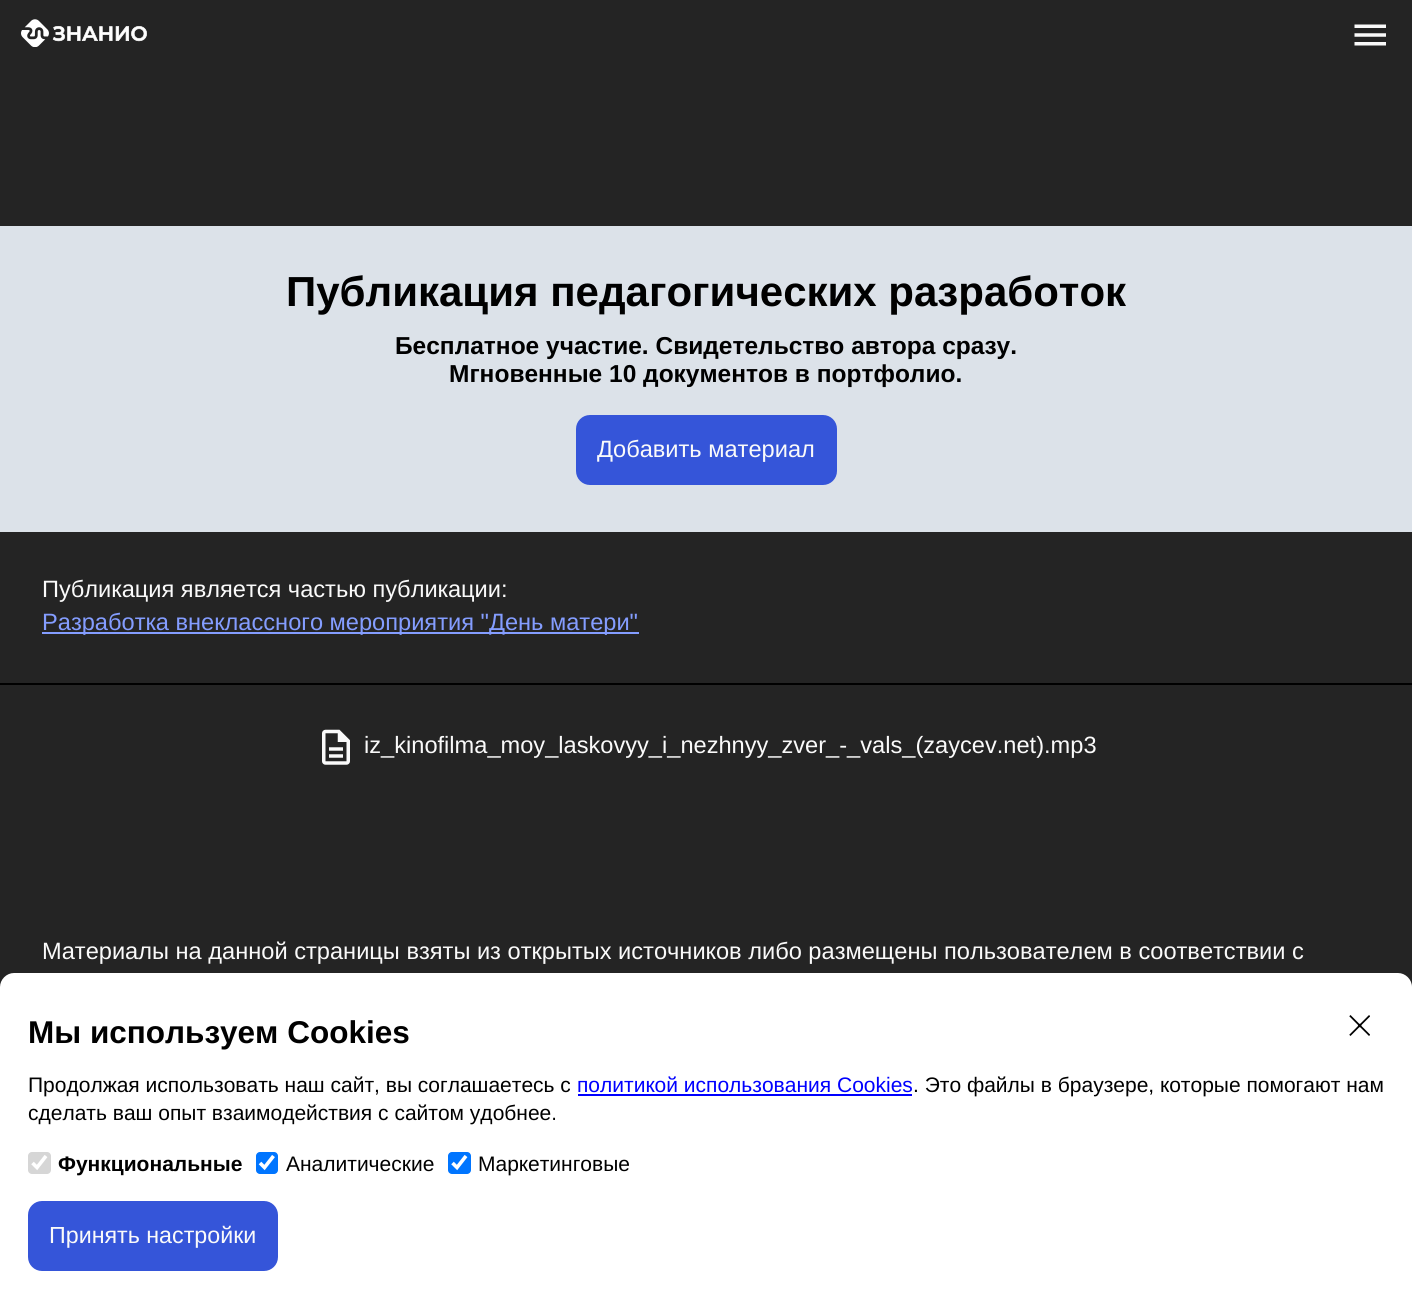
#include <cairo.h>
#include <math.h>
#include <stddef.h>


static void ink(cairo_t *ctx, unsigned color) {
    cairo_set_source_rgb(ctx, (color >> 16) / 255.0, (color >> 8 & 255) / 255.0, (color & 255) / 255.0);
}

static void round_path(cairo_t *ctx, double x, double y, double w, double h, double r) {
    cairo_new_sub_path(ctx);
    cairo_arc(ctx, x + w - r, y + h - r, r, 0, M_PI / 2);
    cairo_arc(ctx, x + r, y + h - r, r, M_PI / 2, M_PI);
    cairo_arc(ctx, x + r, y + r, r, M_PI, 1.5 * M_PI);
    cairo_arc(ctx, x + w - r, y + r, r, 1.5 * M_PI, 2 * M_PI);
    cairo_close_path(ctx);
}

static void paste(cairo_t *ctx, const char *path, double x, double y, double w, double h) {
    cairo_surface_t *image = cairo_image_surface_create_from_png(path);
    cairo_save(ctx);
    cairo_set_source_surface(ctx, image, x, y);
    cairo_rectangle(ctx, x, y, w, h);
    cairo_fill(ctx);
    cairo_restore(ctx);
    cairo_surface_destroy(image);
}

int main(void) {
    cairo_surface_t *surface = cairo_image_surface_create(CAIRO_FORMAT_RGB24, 1412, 1311);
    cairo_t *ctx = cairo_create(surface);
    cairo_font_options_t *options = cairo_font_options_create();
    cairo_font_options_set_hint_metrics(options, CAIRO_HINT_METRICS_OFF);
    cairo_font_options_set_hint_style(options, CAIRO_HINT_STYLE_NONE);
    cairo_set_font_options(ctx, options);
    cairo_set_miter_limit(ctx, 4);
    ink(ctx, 0x242424);
    cairo_paint(ctx);
    paste(ctx, "media/1.png", 21, 19, 126, 28);
    paste(ctx, "media/2.png", 1354, 24, 32, 22);
    ink(ctx, 0xDCE2E9);
    cairo_rectangle(ctx, 0, 226, 1412, 306);
    cairo_fill(ctx);
    cairo_select_font_face(ctx, "Liberation Sans", CAIRO_FONT_SLANT_NORMAL, CAIRO_FONT_WEIGHT_BOLD);
    cairo_set_font_size(ctx, 42);
    ink(ctx, 0x000000);
    cairo_move_to(ctx, 286, 306);
    cairo_show_text(ctx, "Публикация педагогических разработок");
    cairo_set_font_size(ctx, 24.5);
    cairo_move_to(ctx, 395, 354);
    cairo_show_text(ctx, "Бесплатное участие. Свидетельство автора сразу.");
    cairo_move_to(ctx, 449, 382);
    cairo_show_text(ctx, "Мгновенные 10 документов в портфолио.");
    ink(ctx, 0x3555D9);
    round_path(ctx, 576, 415, 261, 70, 14);
    cairo_fill(ctx);
    cairo_select_font_face(ctx, "Liberation Sans", CAIRO_FONT_SLANT_NORMAL, CAIRO_FONT_WEIGHT_NORMAL);
    cairo_set_font_size(ctx, 23.62);
    ink(ctx, 0xFAFAFA);
    cairo_move_to(ctx, 597, 457);
    cairo_show_text(ctx, "Добавить материал");
    cairo_move_to(ctx, 42, 597);
    cairo_show_text(ctx, "Публикация является частью публикации:");
    ink(ctx, 0x849DFF);
    cairo_rectangle(ctx, 42, 632, 597, 2);
    cairo_fill(ctx);
    cairo_move_to(ctx, 42, 630);
    cairo_show_text(ctx, "Разработка внеклассного мероприятия \"День матери\"");
    ink(ctx, 0x000000);
    cairo_rectangle(ctx, 0, 683, 1412, 2);
    cairo_fill(ctx);
    paste(ctx, "media/3.png", 322, 729, 28, 36);
    ink(ctx, 0xFAFAFA);
    cairo_move_to(ctx, 364, 753);
    cairo_show_text(ctx, "iz_kinofilma_moy_laskovyy_i_nezhnyy_zver_-_vals_(zaycev.net).mp3");
    cairo_move_to(ctx, 42, 959);
    cairo_show_text(ctx, "Материалы на данной страницы взяты из открытых источников либо размещены пользователем в соответствии с");
    ink(ctx, 0xFFFFFF);
    cairo_new_path(ctx);
    cairo_move_to(ctx, 14, 973);
    cairo_line_to(ctx, 1398, 973);
    cairo_curve_to(ctx, 1405.5, 973, 1412, 979.5, 1412, 987);
    cairo_line_to(ctx, 1412, 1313);
    cairo_line_to(ctx, 0, 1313);
    cairo_line_to(ctx, 0, 987);
    cairo_curve_to(ctx, 0, 979.5, 6.5, 973, 14, 973);
    cairo_close_path(ctx);
    cairo_fill(ctx);
    cairo_select_font_face(ctx, "Liberation Sans", CAIRO_FONT_SLANT_NORMAL, CAIRO_FONT_WEIGHT_BOLD);
    cairo_set_font_size(ctx, 31.5);
    ink(ctx, 0x000000);
    cairo_move_to(ctx, 28, 1043);
    cairo_show_text(ctx, "Мы используем Cookies");
    paste(ctx, "media/4.png", 1349, 1015, 21, 21);
    cairo_select_font_face(ctx, "Liberation Sans", CAIRO_FONT_SLANT_NORMAL, CAIRO_FONT_WEIGHT_NORMAL);
    cairo_set_font_size(ctx, 21);
    cairo_move_to(ctx, 28, 1092);
    cairo_show_text(ctx, "Продолжая использовать наш сайт, вы соглашаетесь с");
    ink(ctx, 0x0000FF);
    cairo_move_to(ctx, 577, 1092);
    cairo_show_text(ctx, "политикой использования Cookies");
    cairo_rectangle(ctx, 578, 1094, 334, 2);
    cairo_fill(ctx);
    ink(ctx, 0x000000);
    cairo_move_to(ctx, 913, 1092);
    cairo_show_text(ctx, ". Это файлы в браузере, которые помогают нам");
    cairo_move_to(ctx, 28, 1120);
    cairo_show_text(ctx, "сделать ваш опыт взаимодействия с сайтом удобнее.");
    ink(ctx, 0xD6D6D6);
    round_path(ctx, 28, 1152, 23, 22, 4);
    cairo_fill(ctx);
    cairo_new_path(ctx);
    cairo_move_to(ctx, 32.5, 1163);
    cairo_line_to(ctx, 37, 1167.5);
    cairo_line_to(ctx, 46, 1156);
    ink(ctx, 0xFFFFFF);
    cairo_set_line_width(ctx, 3.6);
    cairo_stroke(ctx);
    cairo_select_font_face(ctx, "Liberation Sans", CAIRO_FONT_SLANT_NORMAL, CAIRO_FONT_WEIGHT_BOLD);
    ink(ctx, 0x000000);
    cairo_move_to(ctx, 58, 1171);
    cairo_show_text(ctx, "Функциональные");
    ink(ctx, 0x0075FF);
    round_path(ctx, 256, 1152, 22, 22, 4);
    cairo_fill(ctx);
    cairo_new_path(ctx);
    cairo_move_to(ctx, 260, 1163);
    cairo_line_to(ctx, 264.5, 1167.5);
    cairo_line_to(ctx, 273.5, 1156);
    ink(ctx, 0xFFFFFF);
    cairo_stroke(ctx);
    cairo_select_font_face(ctx, "Liberation Sans", CAIRO_FONT_SLANT_NORMAL, CAIRO_FONT_WEIGHT_NORMAL);
    ink(ctx, 0x000000);
    cairo_move_to(ctx, 286, 1171);
    cairo_show_text(ctx, "Аналитические");
    ink(ctx, 0x0075FF);
    round_path(ctx, 448, 1152, 23, 22, 4);
    cairo_fill(ctx);
    cairo_new_path(ctx);
    cairo_move_to(ctx, 452.5, 1163);
    cairo_line_to(ctx, 457, 1167.5);
    cairo_line_to(ctx, 466, 1156);
    ink(ctx, 0xFFFFFF);
    cairo_stroke(ctx);
    ink(ctx, 0x000000);
    cairo_move_to(ctx, 478, 1171);
    cairo_show_text(ctx, "Маркетинговые");
    ink(ctx, 0x3555D9);
    round_path(ctx, 28, 1201, 250, 70, 14);
    cairo_fill(ctx);
    cairo_set_font_size(ctx, 23.25);
    ink(ctx, 0xFAFAFA);
    cairo_move_to(ctx, 49, 1243);
    cairo_show_text(ctx, "Принять настройки");
    cairo_surface_write_to_png(surface, "image.png");
    cairo_font_options_destroy(options);
    cairo_destroy(ctx);
    cairo_surface_destroy(surface);
    return 0;
}
